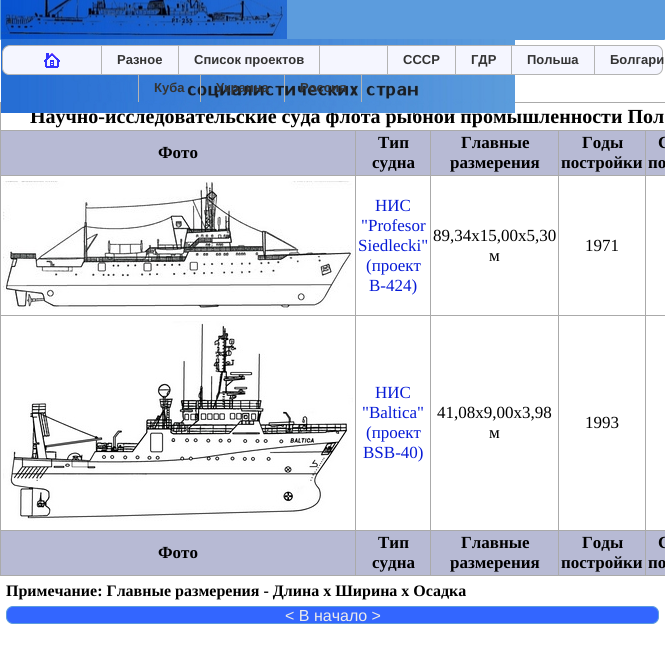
#include <cairo.h>
#include <math.h>
#include <stddef.h>

typedef struct { double x, y; const char *s; } line_t;
typedef struct { double x, y, w, h; unsigned color; } box_t;

static void ink(cairo_t *ctx, unsigned color) {
    cairo_set_source_rgb(ctx, (color >> 16) / 255.0, (color >> 8 & 255) / 255.0, (color & 255) / 255.0);
}

static void round_path(cairo_t *ctx, double x, double y, double w, double h, double r) {
    cairo_new_sub_path(ctx);
    cairo_arc(ctx, x + w - r, y + h - r, r, 0, M_PI / 2);
    cairo_arc(ctx, x + r, y + h - r, r, M_PI / 2, M_PI);
    cairo_arc(ctx, x + r, y + r, r, M_PI, 1.5 * M_PI);
    cairo_arc(ctx, x + w - r, y + r, r, 1.5 * M_PI, 2 * M_PI);
    cairo_close_path(ctx);
}

static void paste(cairo_t *ctx, const char *path, double x, double y, double w, double h) {
    cairo_surface_t *image = cairo_image_surface_create_from_png(path);
    cairo_save(ctx);
    cairo_set_source_surface(ctx, image, x, y);
    cairo_rectangle(ctx, x, y, w, h);
    cairo_fill(ctx);
    cairo_restore(ctx);
    cairo_surface_destroy(image);
}

int main(void) {
    cairo_surface_t *surface = cairo_image_surface_create(CAIRO_FORMAT_RGB24, 665, 663);
    cairo_t *ctx = cairo_create(surface);
    cairo_font_options_t *options = cairo_font_options_create();
    cairo_font_options_set_hint_metrics(options, CAIRO_HINT_METRICS_OFF);
    cairo_font_options_set_hint_style(options, CAIRO_HINT_STYLE_NONE);
    cairo_set_font_options(ctx, options);
    cairo_set_miter_limit(ctx, 4);
    ink(ctx, 0xFFFFFF);
    cairo_paint(ctx);
    ink(ctx, 0x5C9CDD);
    round_path(ctx, 0.5, -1.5, 664, 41, 0.5);
    cairo_fill_preserve(ctx);
    cairo_set_line_width(ctx, 1);
    cairo_stroke(ctx);
    paste(ctx, "media/1.png", 1, 0, 286, 39);
    cairo_select_font_face(ctx, "Liberation Serif", CAIRO_FONT_SLANT_NORMAL, CAIRO_FONT_WEIGHT_BOLD);
    cairo_set_font_size(ctx, 20);
    ink(ctx, 0x000000);
    cairo_move_to(ctx, 30, 123);
    cairo_show_text(ctx, "Научно-исследовательские суда флота рыбной промышленности Пол");
    paste(ctx, "media/2.png", 1, 39, 514, 74);
    ink(ctx, 0xF5F6FF);
    cairo_new_path(ctx);
    cairo_move_to(ctx, 10, 45.5);
    cairo_line_to(ctx, 656, 45.5);
    cairo_curve_to(ctx, 659.5, 45.5, 662.5, 48.5, 662.5, 52);
    cairo_line_to(ctx, 662.5, 68);
    cairo_curve_to(ctx, 662.5, 71.5, 659.5, 74.5, 656, 74.5);
    cairo_line_to(ctx, 9, 74.5);
    cairo_curve_to(ctx, 5.5, 74.5, 2.5, 71.5, 2.5, 68);
    cairo_line_to(ctx, 2.5, 53);
    cairo_curve_to(ctx, 2.5, 49, 6, 45.5, 10, 45.5);
    cairo_close_path(ctx);
    cairo_fill_preserve(ctx);
    ink(ctx, 0xB4B4B4);
    cairo_stroke(ctx);
    paste(ctx, "media/3.png", 44, 53, 16, 15);
    cairo_rectangle(ctx, 101, 46, 1, 28);
    cairo_fill(ctx);
    cairo_select_font_face(ctx, "Liberation Sans", CAIRO_FONT_SLANT_NORMAL, CAIRO_FONT_WEIGHT_BOLD);
    cairo_set_font_size(ctx, 13);
    ink(ctx, 0x333333);
    cairo_move_to(ctx, 117, 64);
    cairo_show_text(ctx, "Разное");
    ink(ctx, 0xB4B4B4);
    cairo_rectangle(ctx, 178, 46, 1, 28);
    cairo_fill(ctx);
    ink(ctx, 0x333333);
    cairo_move_to(ctx, 194, 64);
    cairo_show_text(ctx, "Список проектов");
    ink(ctx, 0xB4B4B4);
    cairo_rectangle(ctx, 319, 46, 1, 28);
    cairo_fill(ctx);
    cairo_rectangle(ctx, 387, 46, 1, 28);
    cairo_fill(ctx);
    ink(ctx, 0x333333);
    cairo_move_to(ctx, 403, 64);
    cairo_show_text(ctx, "СССР");
    ink(ctx, 0xB4B4B4);
    cairo_rectangle(ctx, 455, 46, 1, 28);
    cairo_fill(ctx);
    ink(ctx, 0x333333);
    cairo_move_to(ctx, 471, 64);
    cairo_show_text(ctx, "ГДР");
    ink(ctx, 0xB4B4B4);
    cairo_rectangle(ctx, 511, 46, 1, 28);
    cairo_fill(ctx);
    ink(ctx, 0x333333);
    cairo_move_to(ctx, 527, 64);
    cairo_show_text(ctx, "Польша");
    ink(ctx, 0xB4B4B4);
    cairo_rectangle(ctx, 594, 46, 1, 28);
    cairo_fill(ctx);
    ink(ctx, 0x333333);
    cairo_move_to(ctx, 610, 64);
    cairo_show_text(ctx, "Болгари");
    ink(ctx, 0xB4B4B4);
    cairo_rectangle(ctx, 138, 74, 1, 28);
    cairo_fill(ctx);
    ink(ctx, 0x333333);
    cairo_move_to(ctx, 154, 92);
    cairo_show_text(ctx, "Куба");
    ink(ctx, 0xB4B4B4);
    cairo_rectangle(ctx, 200, 74, 1, 28);
    cairo_fill(ctx);
    ink(ctx, 0x333333);
    cairo_move_to(ctx, 216, 92);
    cairo_show_text(ctx, "Украина");
    ink(ctx, 0xB4B4B4);
    cairo_rectangle(ctx, 284, 74, 1, 28);
    cairo_fill(ctx);
    ink(ctx, 0x333333);
    cairo_move_to(ctx, 300, 92);
    cairo_show_text(ctx, "Россия");
    {
        static const box_t items[] = {
            {361, 74, 1, 28, 0xB4B4B4},
            {515, 102, 150, 1, 0xAAAAAA},
            {0, 575, 665, 1, 0xAAAAAA},
            {0, 102, 1, 474, 0xAAAAAA},
            {1, 131, 664, 44, 0xB7BAD4},
            {645, 130, 20, 1, 0xAAAAAA},
            {645, 175, 20, 1, 0xAAAAAA},
            {645, 315, 20, 1, 0xAAAAAA},
            {645, 530, 20, 1, 0xAAAAAA},
            {1, 531, 664, 44, 0xB7BAD4},
            {645, 530, 1, 46, 0xAAAAAA},
            {558, 530, 88, 1, 0xAAAAAA},
            {645, 315, 1, 216, 0xAAAAAA},
            {558, 315, 88, 1, 0xAAAAAA},
            {645, 175, 1, 141, 0xAAAAAA},
            {558, 175, 88, 1, 0xAAAAAA},
            {645, 130, 1, 46, 0xAAAAAA},
            {558, 130, 88, 1, 0xAAAAAA},
            {558, 530, 1, 46, 0xAAAAAA},
            {430, 530, 129, 1, 0xAAAAAA},
            {558, 315, 1, 216, 0xAAAAAA},
            {430, 315, 129, 1, 0xAAAAAA},
            {558, 175, 1, 141, 0xAAAAAA},
            {430, 175, 129, 1, 0xAAAAAA},
            {558, 130, 1, 46, 0xAAAAAA},
            {430, 130, 129, 1, 0xAAAAAA},
            {430, 530, 1, 46, 0xAAAAAA},
            {355, 530, 76, 1, 0xAAAAAA},
            {430, 315, 1, 216, 0xAAAAAA},
            {355, 315, 76, 1, 0xAAAAAA},
            {430, 175, 1, 141, 0xAAAAAA},
            {355, 175, 76, 1, 0xAAAAAA},
            {430, 130, 1, 46, 0xAAAAAA},
            {355, 130, 76, 1, 0xAAAAAA},
            {355, 530, 1, 46, 0xAAAAAA},
            {0, 530, 356, 1, 0xAAAAAA},
            {355, 315, 1, 216, 0xAAAAAA},
            {0, 315, 356, 1, 0xAAAAAA},
            {355, 175, 1, 141, 0xAAAAAA},
            {0, 175, 356, 1, 0xAAAAAA},
            {355, 130, 1, 46, 0xAAAAAA},
            {0, 130, 356, 1, 0xAAAAAA},
        };
        for (size_t i = 0; i < sizeof items / sizeof *items; i++) {
            ink(ctx, items[i].color);
            cairo_rectangle(ctx, items[i].x, items[i].y, items[i].w, items[i].h);
            cairo_fill(ctx);
        }
    }
    cairo_select_font_face(ctx, "Liberation Serif", CAIRO_FONT_SLANT_NORMAL, CAIRO_FONT_WEIGHT_BOLD);
    cairo_set_font_size(ctx, 17);
    ink(ctx, 0x000000);
    {
        static const line_t items[] = {
            {158, 158, "Фото"},
            {378, 148, "Тип"},
            {372, 168, "судна"},
            {461, 148, "Главные"},
            {450, 168, "размерения"},
            {582, 148, "Годы"},
            {561, 168, "постройки"},
            {658, 148, "С"},
            {648, 168, "по"},
        };
        for (size_t i = 0; i < sizeof items / sizeof *items; i++) {
            cairo_move_to(ctx, items[i].x, items[i].y);
            cairo_show_text(ctx, items[i].s);
        }
    }
    paste(ctx, "media/4.png", 3, 181, 350, 129);
    cairo_select_font_face(ctx, "Liberation Serif", CAIRO_FONT_SLANT_NORMAL, CAIRO_FONT_WEIGHT_NORMAL);
    ink(ctx, 0x071BD7);
    {
        static const line_t items[] = {
            {375, 211, "НИС"},
            {361, 231, "\"Profesor"},
            {358, 251, "Siedlecki\""},
            {366, 271, "(проект"},
            {369, 291, "B-424)"},
        };
        for (size_t i = 0; i < sizeof items / sizeof *items; i++) {
            cairo_move_to(ctx, items[i].x, items[i].y);
            cairo_show_text(ctx, items[i].s);
        }
    }
    ink(ctx, 0x000000);
    {
        static const line_t items[] = {
            {433, 241, "89,34x15,00x5,30"},
            {489, 261, "м"},
            {585, 251, "1971"},
        };
        for (size_t i = 0; i < sizeof items / sizeof *items; i++) {
            cairo_move_to(ctx, items[i].x, items[i].y);
            cairo_show_text(ctx, items[i].s);
        }
    }
    paste(ctx, "media/5.png", 3, 321, 350, 200);
    ink(ctx, 0x071BD7);
    {
        static const line_t items[] = {
            {375, 398, "НИС"},
            {362, 418, "\"Baltica\""},
            {366, 438, "(проект"},
            {363, 458, "BSB-40)"},
        };
        for (size_t i = 0; i < sizeof items / sizeof *items; i++) {
            cairo_move_to(ctx, items[i].x, items[i].y);
            cairo_show_text(ctx, items[i].s);
        }
    }
    ink(ctx, 0x000000);
    {
        static const line_t items[] = {
            {437, 418, "41,08x9,00x3,98"},
            {489, 438, "м"},
            {585, 428, "1993"},
        };
        for (size_t i = 0; i < sizeof items / sizeof *items; i++) {
            cairo_move_to(ctx, items[i].x, items[i].y);
            cairo_show_text(ctx, items[i].s);
        }
    }
    cairo_select_font_face(ctx, "Liberation Serif", CAIRO_FONT_SLANT_NORMAL, CAIRO_FONT_WEIGHT_BOLD);
    {
        static const line_t items[] = {
            {158, 558, "Фото"},
            {378, 548, "Тип"},
            {372, 568, "судна"},
            {461, 548, "Главные"},
            {450, 568, "размерения"},
            {582, 548, "Годы"},
            {561, 568, "постройки"},
            {658, 548, "С"},
            {648, 568, "по"},
        };
        for (size_t i = 0; i < sizeof items / sizeof *items; i++) {
            cairo_move_to(ctx, items[i].x, items[i].y);
            cairo_show_text(ctx, items[i].s);
        }
    }
    cairo_set_font_size(ctx, 16);
    cairo_move_to(ctx, 6, 596);
    cairo_show_text(ctx, "Примечание: Главные размерения - Длина x Ширина x Осадка");
    ink(ctx, 0x3366FF);
    round_path(ctx, 6.5, 606.5, 652, 17, 6.5);
    cairo_fill_preserve(ctx);
    ink(ctx, 0x5C9CDD);
    cairo_stroke(ctx);
    cairo_select_font_face(ctx, "Liberation Sans", CAIRO_FONT_SLANT_NORMAL, CAIRO_FONT_WEIGHT_NORMAL);
    ink(ctx, 0xEDEBEB);
    cairo_move_to(ctx, 285, 621);
    cairo_show_text(ctx, "< В начало >");
    cairo_surface_write_to_png(surface, "image.png");
    cairo_font_options_destroy(options);
    cairo_destroy(ctx);
    cairo_surface_destroy(surface);
    return 0;
}
